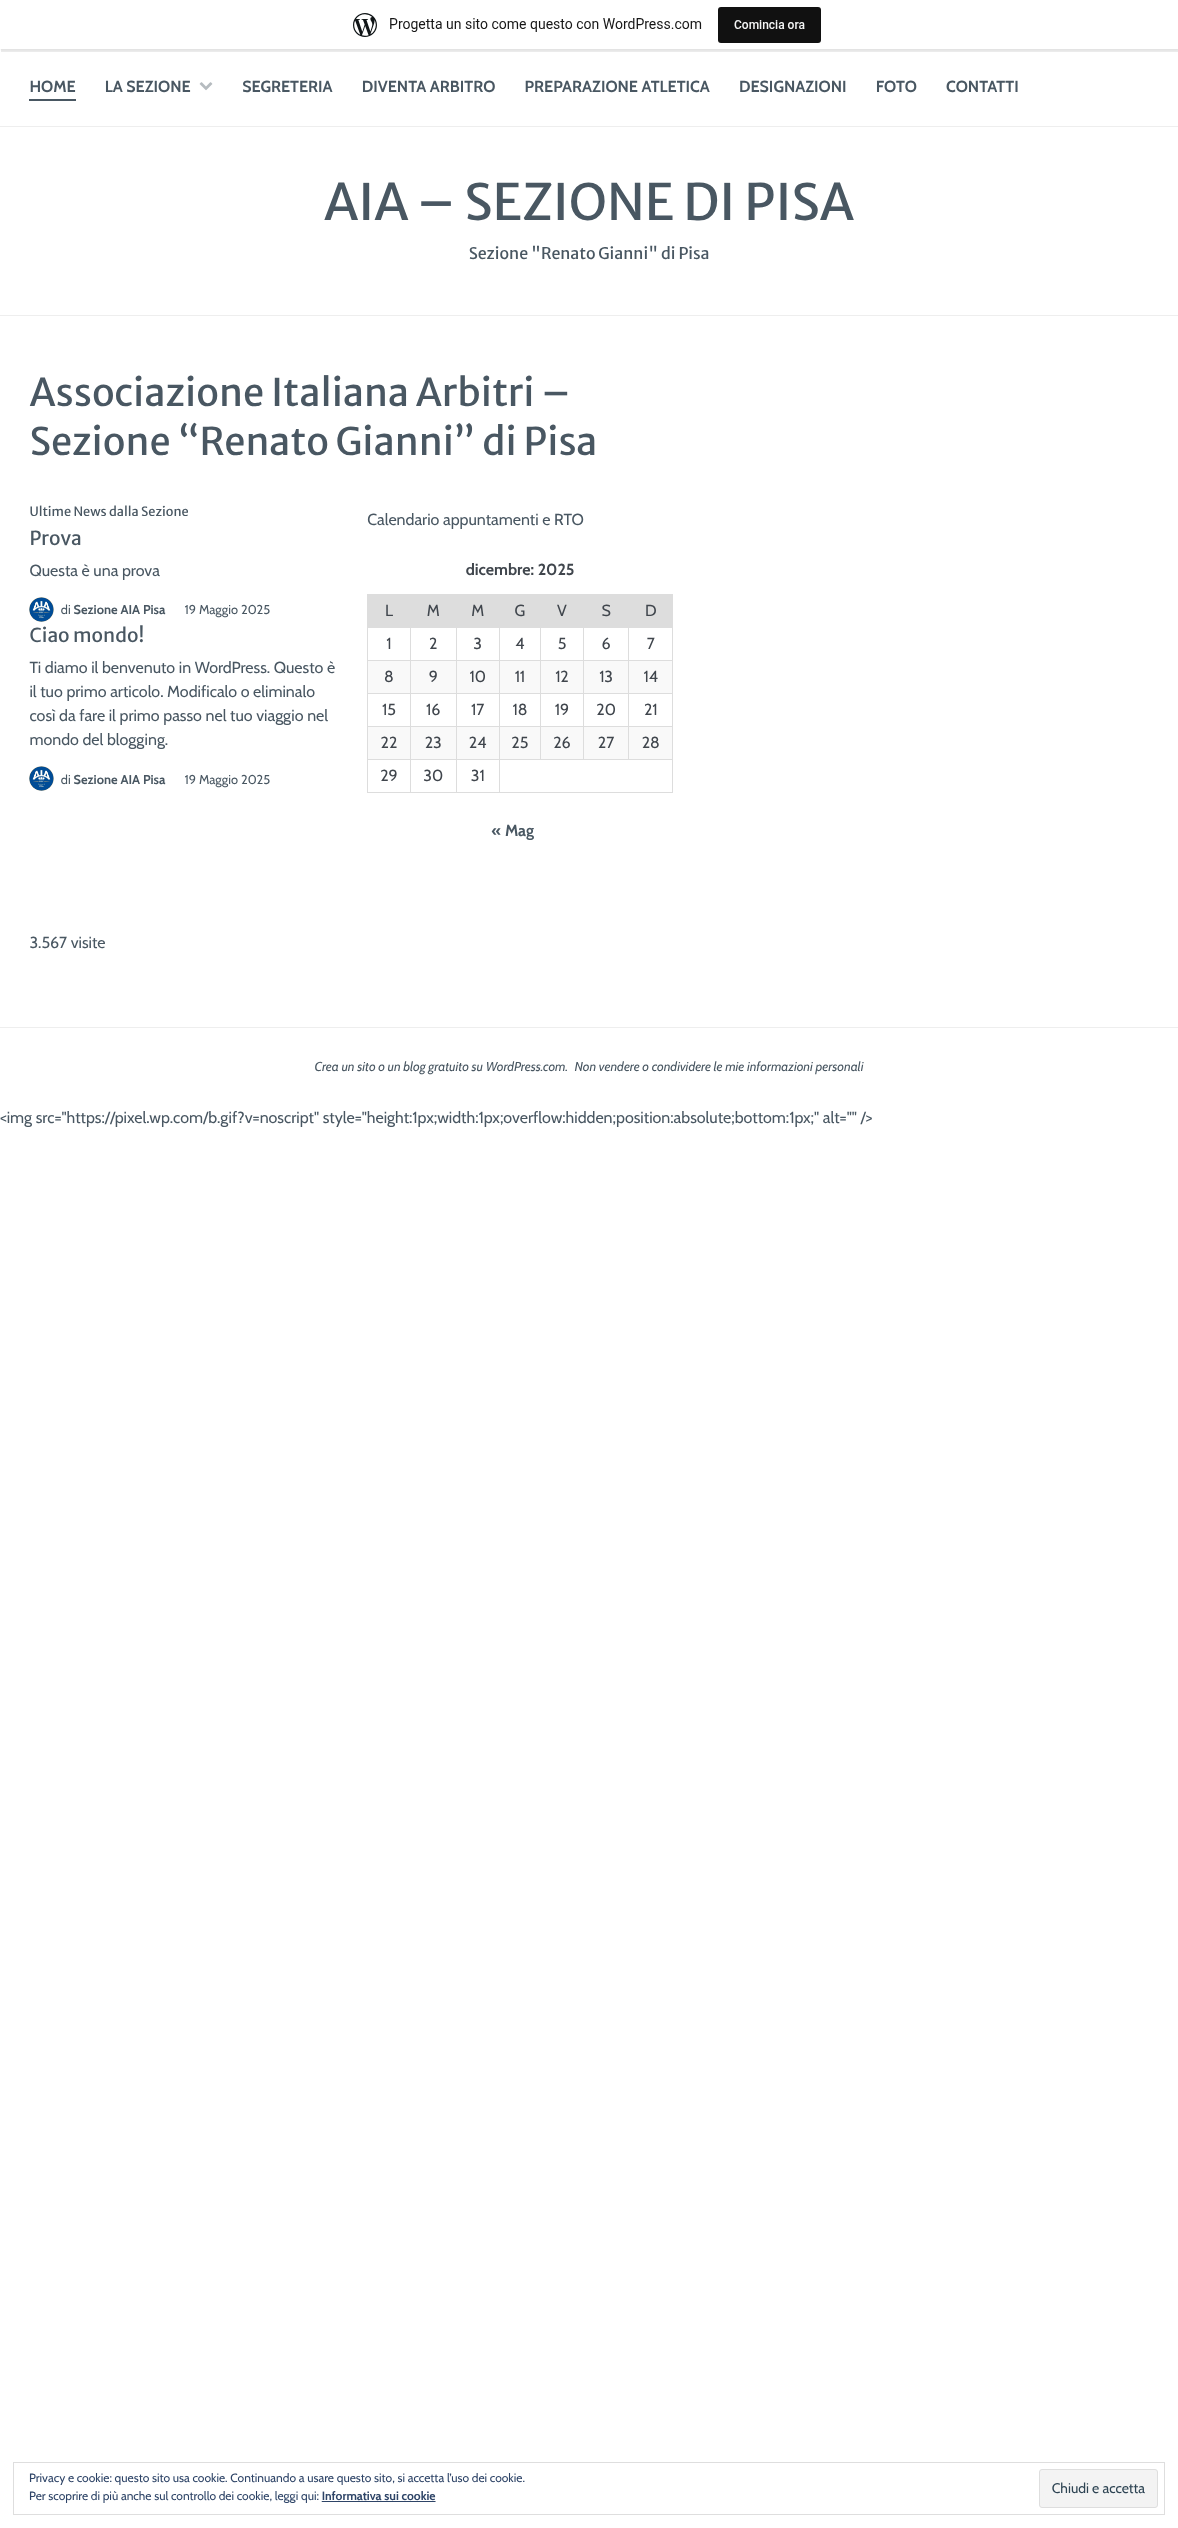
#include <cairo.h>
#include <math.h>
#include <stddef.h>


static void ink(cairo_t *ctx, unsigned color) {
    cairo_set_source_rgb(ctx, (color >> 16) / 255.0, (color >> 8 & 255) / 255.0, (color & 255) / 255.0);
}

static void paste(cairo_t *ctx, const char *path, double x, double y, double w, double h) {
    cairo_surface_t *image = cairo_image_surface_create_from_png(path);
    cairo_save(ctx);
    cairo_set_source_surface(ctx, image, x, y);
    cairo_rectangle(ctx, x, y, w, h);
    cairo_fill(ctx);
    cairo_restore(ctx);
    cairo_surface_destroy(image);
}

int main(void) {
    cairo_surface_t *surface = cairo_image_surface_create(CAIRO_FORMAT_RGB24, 1178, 2528);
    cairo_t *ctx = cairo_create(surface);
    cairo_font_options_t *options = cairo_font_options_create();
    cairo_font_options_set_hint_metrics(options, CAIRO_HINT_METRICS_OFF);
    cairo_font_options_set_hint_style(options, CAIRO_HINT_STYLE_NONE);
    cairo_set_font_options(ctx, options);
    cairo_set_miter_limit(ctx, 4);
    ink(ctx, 0xFFFFFF);
    cairo_paint(ctx);
    paste(ctx, "media/1.png", 0, 7, 1178, 2508);
    cairo_surface_write_to_png(surface, "image.png");
    cairo_font_options_destroy(options);
    cairo_destroy(ctx);
    cairo_surface_destroy(surface);
    return 0;
}
